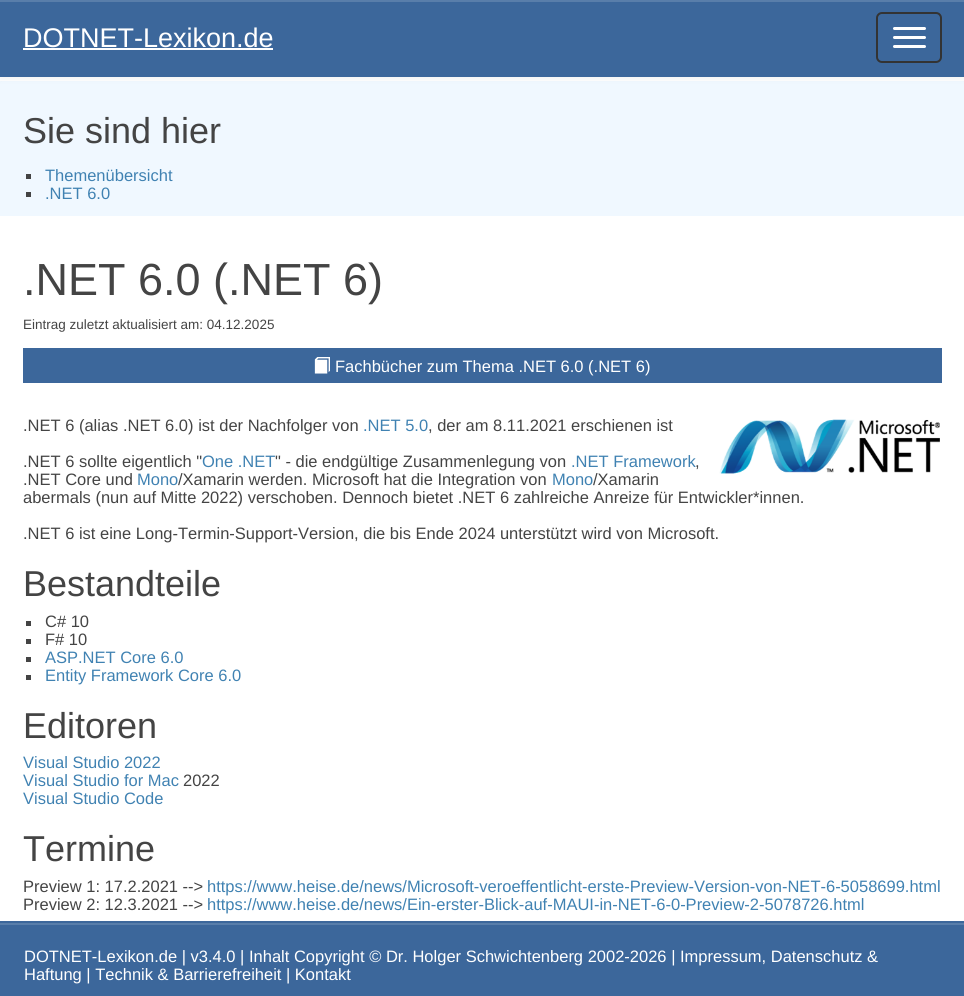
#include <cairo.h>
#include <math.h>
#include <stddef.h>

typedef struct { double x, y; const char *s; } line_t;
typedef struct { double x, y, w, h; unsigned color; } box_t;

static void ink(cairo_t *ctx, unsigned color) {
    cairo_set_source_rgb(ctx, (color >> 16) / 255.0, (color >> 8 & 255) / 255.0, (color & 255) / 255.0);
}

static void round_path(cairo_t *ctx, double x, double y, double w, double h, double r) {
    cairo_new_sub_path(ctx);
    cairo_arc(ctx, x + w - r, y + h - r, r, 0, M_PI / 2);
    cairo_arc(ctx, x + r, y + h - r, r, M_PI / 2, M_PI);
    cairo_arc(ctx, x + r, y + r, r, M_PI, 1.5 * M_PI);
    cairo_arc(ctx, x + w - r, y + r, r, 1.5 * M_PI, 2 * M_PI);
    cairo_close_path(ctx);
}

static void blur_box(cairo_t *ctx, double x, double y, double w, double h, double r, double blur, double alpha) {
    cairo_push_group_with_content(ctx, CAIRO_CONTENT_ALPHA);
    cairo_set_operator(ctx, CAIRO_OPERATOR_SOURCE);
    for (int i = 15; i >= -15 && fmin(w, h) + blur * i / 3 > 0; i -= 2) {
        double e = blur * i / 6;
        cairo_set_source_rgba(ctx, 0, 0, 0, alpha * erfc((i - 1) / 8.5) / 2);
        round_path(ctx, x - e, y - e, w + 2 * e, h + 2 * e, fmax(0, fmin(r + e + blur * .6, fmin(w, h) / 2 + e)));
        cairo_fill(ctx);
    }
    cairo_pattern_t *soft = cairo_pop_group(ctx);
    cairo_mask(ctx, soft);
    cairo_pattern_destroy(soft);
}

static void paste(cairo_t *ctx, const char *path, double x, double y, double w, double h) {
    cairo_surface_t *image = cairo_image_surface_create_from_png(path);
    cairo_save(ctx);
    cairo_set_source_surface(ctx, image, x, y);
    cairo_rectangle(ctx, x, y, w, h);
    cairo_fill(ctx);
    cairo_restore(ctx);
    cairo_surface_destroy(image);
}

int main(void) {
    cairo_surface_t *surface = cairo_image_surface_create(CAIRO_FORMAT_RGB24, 964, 996);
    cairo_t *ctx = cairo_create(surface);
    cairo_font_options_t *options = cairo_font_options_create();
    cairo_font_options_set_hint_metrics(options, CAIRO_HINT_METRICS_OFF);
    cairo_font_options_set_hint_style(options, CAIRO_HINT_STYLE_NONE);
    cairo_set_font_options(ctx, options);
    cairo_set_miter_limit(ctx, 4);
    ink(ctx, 0xFFFFFF);
    cairo_paint(ctx);
    ink(ctx, 0xF0F8FF);
    cairo_rectangle(ctx, 0, 81, 964, 135);
    cairo_fill(ctx);
    ink(ctx, 0x000000);
    blur_box(ctx, 0, 2, 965, 76, 0, 4, 0.07);
    ink(ctx, 0x3C679B);
    cairo_rectangle(ctx, 0, 2, 964, 75);
    cairo_fill(ctx);
    ink(ctx, 0x597EAA);
    cairo_rectangle(ctx, 0, 0, 964, 2);
    cairo_fill(ctx);
    cairo_select_font_face(ctx, "Liberation Sans", CAIRO_FONT_SLANT_NORMAL, CAIRO_FONT_WEIGHT_NORMAL);
    cairo_set_font_size(ctx, 27);
    ink(ctx, 0xFFFFFF);
    cairo_move_to(ctx, 23, 47);
    cairo_show_text(ctx, "DOTNET-Lexikon.de");
    cairo_rectangle(ctx, 23, 48, 250, 2);
    cairo_fill(ctx);
    round_path(ctx, 877, 13, 64, 49, 5);
    ink(ctx, 0x333333);
    cairo_stroke(ctx);
    ink(ctx, 0xFFFFFF);
    round_path(ctx, 893, 27, 33, 3, 1.5);
    cairo_fill(ctx);
    round_path(ctx, 893, 36, 33, 3, 1.5);
    cairo_fill(ctx);
    round_path(ctx, 893, 45, 33, 3, 1.5);
    cairo_fill(ctx);
    cairo_set_font_size(ctx, 36);
    ink(ctx, 0x444444);
    cairo_move_to(ctx, 23, 143);
    cairo_show_text(ctx, "Sie sind hier");
    cairo_rectangle(ctx, 26, 174, 5, 5);
    cairo_fill(ctx);
    cairo_set_font_size(ctx, 16.5);
    ink(ctx, 0x4082B2);
    cairo_move_to(ctx, 45, 181);
    cairo_show_text(ctx, "Themenübersicht");
    ink(ctx, 0x444444);
    cairo_rectangle(ctx, 26, 192, 5, 5);
    cairo_fill(ctx);
    ink(ctx, 0x4082B2);
    cairo_move_to(ctx, 45, 199);
    cairo_show_text(ctx, ".NET 6.0");
    cairo_set_font_size(ctx, 45);
    ink(ctx, 0x444444);
    cairo_move_to(ctx, 23, 295);
    cairo_show_text(ctx, ".NET 6.0 (.NET 6)");
    cairo_set_font_size(ctx, 13.5);
    cairo_move_to(ctx, 23, 329);
    cairo_show_text(ctx, "Eintrag zuletzt aktualisiert am: 04.12.2025");
    ink(ctx, 0x3C679B);
    cairo_rectangle(ctx, 23, 348, 919, 35);
    cairo_fill(ctx);
    paste(ctx, "media/1.png", 314, 357, 16, 17);
    cairo_set_font_size(ctx, 16.5);
    ink(ctx, 0xFFFFFF);
    cairo_move_to(ctx, 335, 372);
    cairo_show_text(ctx, "Fachbücher zum Thema .NET 6.0 (.NET 6)");
    ink(ctx, 0x444444);
    cairo_move_to(ctx, 23, 431);
    cairo_show_text(ctx, ".NET 6 (alias .NET 6.0) ist der Nachfolger von");
    ink(ctx, 0x4082B2);
    cairo_move_to(ctx, 363, 431);
    cairo_show_text(ctx, ".NET 5.0");
    ink(ctx, 0x444444);
    cairo_move_to(ctx, 428, 431);
    cairo_show_text(ctx, ", der am 8.11.2021 erschienen ist");
    paste(ctx, "media/2.png", 719, 419, 221, 55);
    cairo_move_to(ctx, 23, 467);
    cairo_show_text(ctx, ".NET 6 sollte eigentlich \"");
    ink(ctx, 0x4082B2);
    cairo_move_to(ctx, 202, 467);
    cairo_show_text(ctx, "One .NET");
    ink(ctx, 0x444444);
    cairo_move_to(ctx, 275, 467);
    cairo_show_text(ctx, "\" - die endgültige Zusammenlegung von");
    ink(ctx, 0x4082B2);
    cairo_move_to(ctx, 571, 467);
    cairo_show_text(ctx, ".NET Framework");
    ink(ctx, 0x444444);
    cairo_move_to(ctx, 695, 467);
    cairo_show_text(ctx, ",");
    cairo_move_to(ctx, 23, 485);
    cairo_show_text(ctx, ".NET Core und");
    ink(ctx, 0x4082B2);
    cairo_move_to(ctx, 137, 485);
    cairo_show_text(ctx, "Mono");
    ink(ctx, 0x444444);
    cairo_move_to(ctx, 178, 485);
    cairo_show_text(ctx, "/Xamarin werden. Microsoft hat die Integration von");
    ink(ctx, 0x4082B2);
    cairo_move_to(ctx, 552, 485);
    cairo_show_text(ctx, "Mono");
    ink(ctx, 0x444444);
    {
        static const line_t items[] = {
            {593, 485, "/Xamarin"},
            {23, 503, "abermals (nun auf Mitte 2022) verschoben. Dennoch bietet .NET 6 zahlreiche Anreize für Entwickler*innen."},
            {23, 539, ".NET 6 ist eine Long-Termin-Support-Version, die bis Ende 2024 unterstützt wird von Microsoft."},
        };
        for (size_t i = 0; i < sizeof items / sizeof *items; i++) {
            cairo_move_to(ctx, items[i].x, items[i].y);
            cairo_show_text(ctx, items[i].s);
        }
    }
    cairo_set_font_size(ctx, 36);
    cairo_move_to(ctx, 23, 596);
    cairo_show_text(ctx, "Bestandteile");
    cairo_rectangle(ctx, 26, 621, 5, 5);
    cairo_fill(ctx);
    cairo_set_font_size(ctx, 16.5);
    cairo_move_to(ctx, 45, 627);
    cairo_show_text(ctx, "C# 10");
    cairo_rectangle(ctx, 26, 639, 5, 5);
    cairo_fill(ctx);
    cairo_move_to(ctx, 45, 645);
    cairo_show_text(ctx, "F# 10");
    cairo_rectangle(ctx, 26, 657, 5, 5);
    cairo_fill(ctx);
    ink(ctx, 0x4082B2);
    cairo_move_to(ctx, 45, 663);
    cairo_show_text(ctx, "ASP.NET Core 6.0");
    ink(ctx, 0x444444);
    cairo_rectangle(ctx, 26, 675, 5, 5);
    cairo_fill(ctx);
    ink(ctx, 0x4082B2);
    cairo_move_to(ctx, 45, 681);
    cairo_show_text(ctx, "Entity Framework Core 6.0");
    cairo_set_font_size(ctx, 36);
    ink(ctx, 0x444444);
    cairo_move_to(ctx, 23, 738);
    cairo_show_text(ctx, "Editoren");
    cairo_set_font_size(ctx, 16.5);
    ink(ctx, 0x4082B2);
    cairo_move_to(ctx, 23, 768);
    cairo_show_text(ctx, "Visual Studio 2022");
    cairo_move_to(ctx, 23, 786);
    cairo_show_text(ctx, "Visual Studio for Mac");
    ink(ctx, 0x444444);
    cairo_move_to(ctx, 183, 786);
    cairo_show_text(ctx, "2022");
    ink(ctx, 0x4082B2);
    cairo_move_to(ctx, 23, 804);
    cairo_show_text(ctx, "Visual Studio Code");
    cairo_set_font_size(ctx, 36);
    ink(ctx, 0x444444);
    cairo_move_to(ctx, 23, 861);
    cairo_show_text(ctx, "Termine");
    cairo_set_font_size(ctx, 16.5);
    cairo_move_to(ctx, 23, 892);
    cairo_show_text(ctx, "Preview 1: 17.2.2021 -->");
    ink(ctx, 0x4082B2);
    cairo_move_to(ctx, 207, 892);
    cairo_show_text(ctx, "https://www.heise.de/news/Microsoft-veroeffentlicht-erste-Preview-Version-von-NET-6-5058699.html");
    ink(ctx, 0x444444);
    cairo_move_to(ctx, 23, 910);
    cairo_show_text(ctx, "Preview 2: 12.3.2021 -->");
    ink(ctx, 0x4082B2);
    cairo_move_to(ctx, 207, 910);
    cairo_show_text(ctx, "https://www.heise.de/news/Ein-erster-Blick-auf-MAUI-in-NET-6-0-Preview-2-5078726.html");
    {
        static const box_t items[] = {
            {0, 925, 964, 71, 0x3C679B},
            {0, 923, 964, 2, 0x597EAA},
            {0, 921, 964, 2, 0x3C679B},
        };
        for (size_t i = 0; i < sizeof items / sizeof *items; i++) {
            ink(ctx, items[i].color);
            cairo_rectangle(ctx, items[i].x, items[i].y, items[i].w, items[i].h);
            cairo_fill(ctx);
        }
    }
    ink(ctx, 0xFFFFFF);
    cairo_move_to(ctx, 24, 962);
    cairo_show_text(ctx, "DOTNET-Lexikon.de | v3.4.0 | Inhalt Copyright © Dr. Holger Schwichtenberg 2002-2026 | Impressum, Datenschutz &");
    cairo_move_to(ctx, 24, 980);
    cairo_show_text(ctx, "Haftung | Technik & Barrierefreiheit | Kontakt");
    cairo_surface_write_to_png(surface, "image.png");
    cairo_font_options_destroy(options);
    cairo_destroy(ctx);
    cairo_surface_destroy(surface);
    return 0;
}
